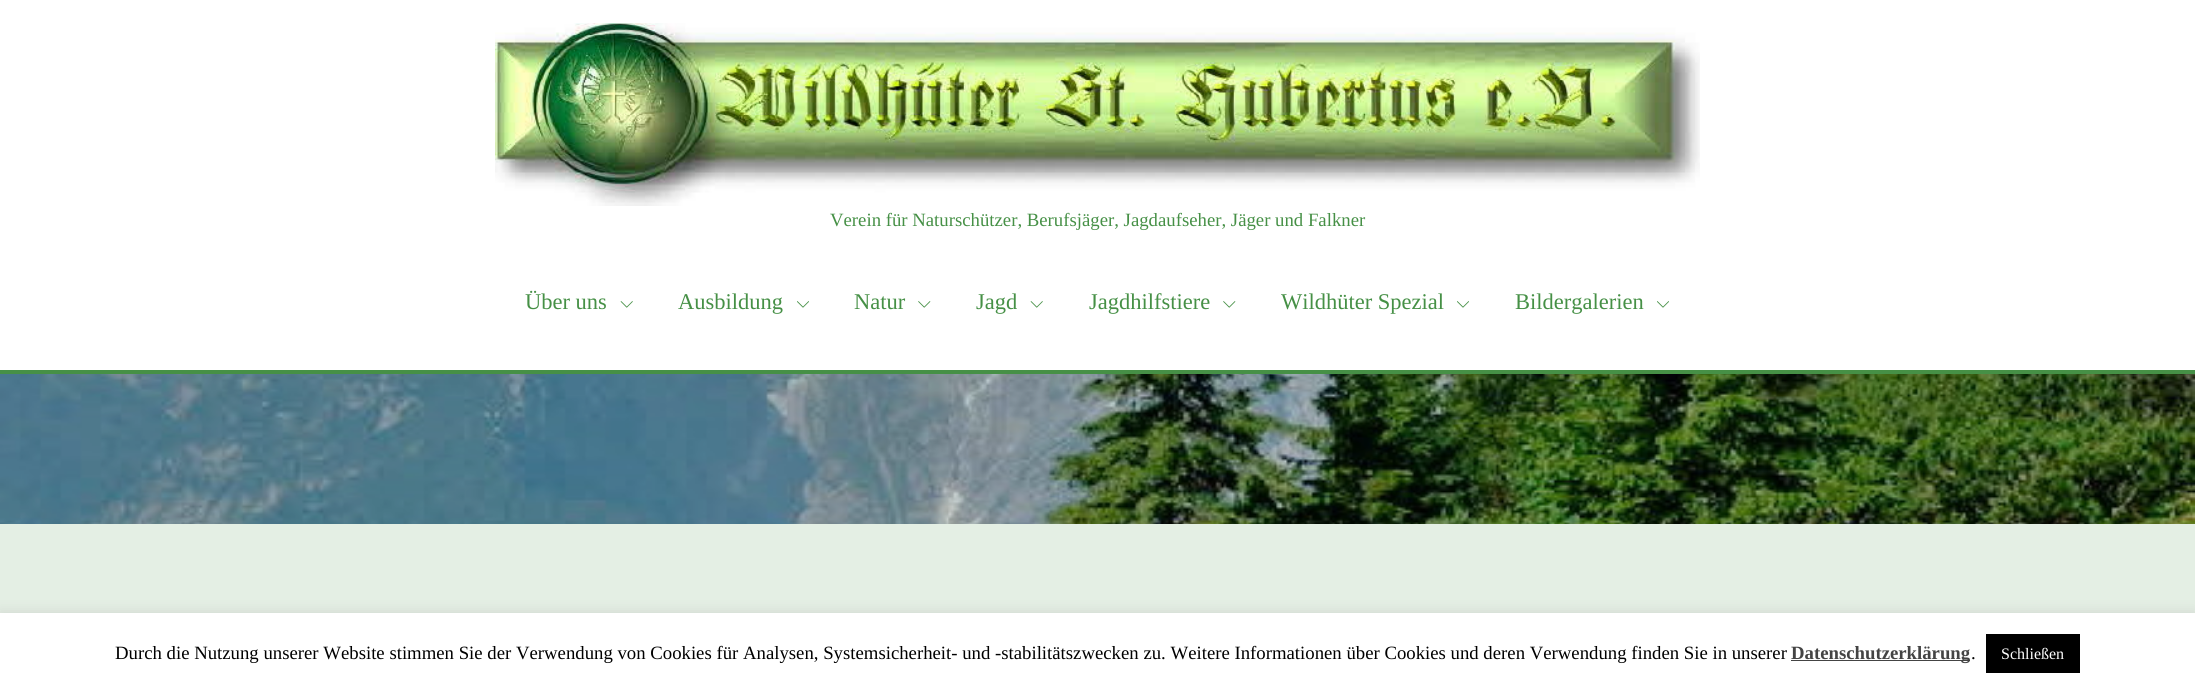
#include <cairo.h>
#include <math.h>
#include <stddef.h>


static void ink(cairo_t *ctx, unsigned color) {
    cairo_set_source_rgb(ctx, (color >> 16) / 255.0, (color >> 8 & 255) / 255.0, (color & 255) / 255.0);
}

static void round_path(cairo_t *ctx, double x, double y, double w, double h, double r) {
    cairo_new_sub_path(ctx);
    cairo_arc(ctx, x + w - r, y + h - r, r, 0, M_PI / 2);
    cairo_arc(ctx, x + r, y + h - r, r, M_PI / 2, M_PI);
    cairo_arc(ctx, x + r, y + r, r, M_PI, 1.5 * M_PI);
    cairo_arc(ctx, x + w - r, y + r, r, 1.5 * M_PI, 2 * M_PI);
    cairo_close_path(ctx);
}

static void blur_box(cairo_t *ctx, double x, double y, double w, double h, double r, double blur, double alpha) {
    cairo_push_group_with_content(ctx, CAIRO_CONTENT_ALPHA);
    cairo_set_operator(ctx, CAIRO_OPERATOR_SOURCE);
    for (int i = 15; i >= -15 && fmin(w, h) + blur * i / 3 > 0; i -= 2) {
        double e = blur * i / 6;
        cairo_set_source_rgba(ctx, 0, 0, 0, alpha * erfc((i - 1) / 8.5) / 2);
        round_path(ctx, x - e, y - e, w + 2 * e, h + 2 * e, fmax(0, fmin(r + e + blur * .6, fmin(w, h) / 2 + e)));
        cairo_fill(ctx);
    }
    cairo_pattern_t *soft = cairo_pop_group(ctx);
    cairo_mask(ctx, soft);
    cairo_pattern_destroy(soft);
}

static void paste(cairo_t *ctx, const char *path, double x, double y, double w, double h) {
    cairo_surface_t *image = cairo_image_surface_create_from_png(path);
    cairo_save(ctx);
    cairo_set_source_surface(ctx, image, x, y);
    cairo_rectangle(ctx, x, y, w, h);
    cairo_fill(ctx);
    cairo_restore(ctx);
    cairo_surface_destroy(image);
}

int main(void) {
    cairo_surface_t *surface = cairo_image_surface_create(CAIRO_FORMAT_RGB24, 2195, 687);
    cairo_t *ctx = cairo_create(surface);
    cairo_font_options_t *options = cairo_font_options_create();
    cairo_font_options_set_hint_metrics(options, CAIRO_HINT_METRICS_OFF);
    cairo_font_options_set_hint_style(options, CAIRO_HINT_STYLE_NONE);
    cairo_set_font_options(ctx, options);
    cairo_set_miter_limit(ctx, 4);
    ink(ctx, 0xE4EFE4);
    cairo_paint(ctx);
    ink(ctx, 0xFFFFFF);
    cairo_rectangle(ctx, 0, 0, 2195, 370);
    cairo_fill(ctx);
    ink(ctx, 0x469046);
    cairo_rectangle(ctx, 0, 370, 2195, 4);
    cairo_fill(ctx);
    paste(ctx, "media/1.png", 495, 23, 1205, 183);
    cairo_select_font_face(ctx, "Liberation Serif", CAIRO_FONT_SLANT_NORMAL, CAIRO_FONT_WEIGHT_NORMAL);
    cairo_set_font_size(ctx, 18.75);
    cairo_move_to(ctx, 830, 226);
    cairo_show_text(ctx, "Verein für Naturschützer, Berufsjäger, Jagdaufseher, Jäger und Falkner");
    cairo_set_font_size(ctx, 22.5);
    cairo_move_to(ctx, 525, 309);
    cairo_show_text(ctx, "Über uns");
    paste(ctx, "media/2.png", 620, 301, 13, 7);
    cairo_move_to(ctx, 678, 309);
    cairo_show_text(ctx, "Ausbildung");
    paste(ctx, "media/3.png", 797, 301, 12, 7);
    cairo_move_to(ctx, 854, 309);
    cairo_show_text(ctx, "Natur");
    paste(ctx, "media/4.png", 918, 301, 13, 7);
    cairo_move_to(ctx, 976, 309);
    cairo_show_text(ctx, "Jagd");
    paste(ctx, "media/2.png", 1030, 301, 13, 7);
    cairo_move_to(ctx, 1089, 309);
    cairo_show_text(ctx, "Jagdhilfstiere");
    paste(ctx, "media/4.png", 1223, 301, 13, 7);
    cairo_move_to(ctx, 1281, 309);
    cairo_show_text(ctx, "Wildhüter Spezial");
    paste(ctx, "media/3.png", 1457, 301, 12, 7);
    cairo_move_to(ctx, 1515, 309);
    cairo_show_text(ctx, "Bildergalerien");
    paste(ctx, "media/3.png", 1657, 301, 12, 7);
    paste(ctx, "media/5.png", 0, 374, 2195, 150);
    ink(ctx, 0xACABAB);
    blur_box(ctx, 0, 611, 2195, 75, 0, 6, 0.3);
    ink(ctx, 0xFFFFFF);
    cairo_rectangle(ctx, 0, 613, 2195, 74);
    cairo_fill(ctx);
    cairo_set_font_size(ctx, 18.75);
    ink(ctx, 0x000000);
    cairo_move_to(ctx, 115, 659);
    cairo_show_text(ctx, "Durch die Nutzung unserer Website stimmen Sie der Verwendung von Cookies für Analysen, Systemsicherheit- und -stabilitätszwecken zu. Weitere Informationen über Cookies und deren Verwendung finden Sie in unserer");
    ink(ctx, 0x444444);
    cairo_rectangle(ctx, 1791, 660, 179, 1);
    cairo_fill(ctx);
    cairo_select_font_face(ctx, "Liberation Serif", CAIRO_FONT_SLANT_NORMAL, CAIRO_FONT_WEIGHT_BOLD);
    cairo_move_to(ctx, 1791, 659);
    cairo_show_text(ctx, "Datenschutzerklärung");
    cairo_select_font_face(ctx, "Liberation Serif", CAIRO_FONT_SLANT_NORMAL, CAIRO_FONT_WEIGHT_NORMAL);
    ink(ctx, 0x000000);
    cairo_move_to(ctx, 1971, 659);
    cairo_show_text(ctx, ".");
    cairo_rectangle(ctx, 1986, 634, 94, 39);
    cairo_fill(ctx);
    cairo_set_font_size(ctx, 16);
    ink(ctx, 0xFFFFFF);
    cairo_move_to(ctx, 2001, 659);
    cairo_show_text(ctx, "Schließen");
    cairo_surface_write_to_png(surface, "image.png");
    cairo_font_options_destroy(options);
    cairo_destroy(ctx);
    cairo_surface_destroy(surface);
    return 0;
}
